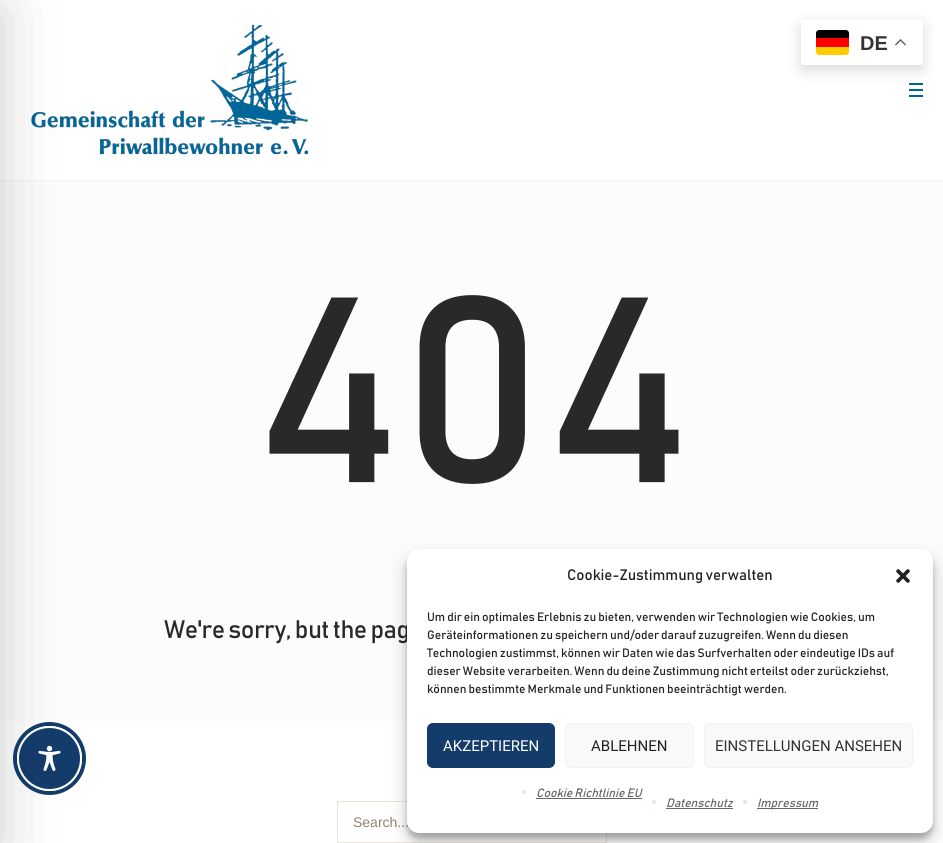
#include <cairo.h>
#include <math.h>
#include <stddef.h>

typedef struct { double x, y; const char *s; } line_t;

static void ink(cairo_t *ctx, unsigned color) {
    cairo_set_source_rgb(ctx, (color >> 16) / 255.0, (color >> 8 & 255) / 255.0, (color & 255) / 255.0);
}

static void write_spaced(cairo_t *ctx, double x, double y, const char *s, double letter, double word) {
    cairo_move_to(ctx, x, y);
    while (*s) {
        char ch[5] = {0};
        int n = 0;
        do ch[n++] = *s++; while ((*s & 0xC0) == 0x80);
        cairo_show_text(ctx, ch);
        cairo_rel_move_to(ctx, letter + word * (*ch == ' '), 0);
    }
}

static void round_path(cairo_t *ctx, double x, double y, double w, double h, double r) {
    cairo_new_sub_path(ctx);
    cairo_arc(ctx, x + w - r, y + h - r, r, 0, M_PI / 2);
    cairo_arc(ctx, x + r, y + h - r, r, M_PI / 2, M_PI);
    cairo_arc(ctx, x + r, y + r, r, M_PI, 1.5 * M_PI);
    cairo_arc(ctx, x + w - r, y + r, r, 1.5 * M_PI, 2 * M_PI);
    cairo_close_path(ctx);
}

static void blur_box(cairo_t *ctx, double x, double y, double w, double h, double r, double blur, double alpha) {
    cairo_push_group_with_content(ctx, CAIRO_CONTENT_ALPHA);
    cairo_set_operator(ctx, CAIRO_OPERATOR_SOURCE);
    for (int i = 15; i >= -15 && fmin(w, h) + blur * i / 3 > 0; i -= 2) {
        double e = blur * i / 6;
        cairo_set_source_rgba(ctx, 0, 0, 0, alpha * erfc((i - 1) / 8.5) / 2);
        round_path(ctx, x - e, y - e, w + 2 * e, h + 2 * e, fmax(0, fmin(r + e + blur * .6, fmin(w, h) / 2 + e)));
        cairo_fill(ctx);
    }
    cairo_pattern_t *soft = cairo_pop_group(ctx);
    cairo_mask(ctx, soft);
    cairo_pattern_destroy(soft);
}

static void paste(cairo_t *ctx, const char *path, double x, double y, double w, double h) {
    cairo_surface_t *image = cairo_image_surface_create_from_png(path);
    cairo_save(ctx);
    cairo_set_source_surface(ctx, image, x, y);
    cairo_rectangle(ctx, x, y, w, h);
    cairo_fill(ctx);
    cairo_restore(ctx);
    cairo_surface_destroy(image);
}

int main(void) {
    cairo_surface_t *surface = cairo_image_surface_create(CAIRO_FORMAT_RGB24, 943, 843);
    cairo_t *ctx = cairo_create(surface);
    cairo_font_options_t *options = cairo_font_options_create();
    cairo_font_options_set_hint_metrics(options, CAIRO_HINT_METRICS_OFF);
    cairo_font_options_set_hint_style(options, CAIRO_HINT_STYLE_NONE);
    cairo_set_font_options(ctx, options);
    cairo_set_miter_limit(ctx, 4);
    ink(ctx, 0xFFFFFF);
    cairo_paint(ctx);
    ink(ctx, 0xF7F4ED);
    cairo_rectangle(ctx, 0, 180, 943, 1);
    cairo_fill(ctx);
    paste(ctx, "media/2.png", 31, 24, 278, 131);
    ink(ctx, 0xFCFCFC);
    cairo_rectangle(ctx, 0, 181, 943, 540);
    cairo_fill(ctx);
    cairo_arc(ctx, 49.5, 758.5, 34.5, 0, 2 * M_PI);
    ink(ctx, 0x143C6B);
    cairo_set_line_width(ctx, 4);
    cairo_stroke(ctx);
    cairo_arc(ctx, 49.5, 758.5, 31.5, 0, 2 * M_PI);
    cairo_fill_preserve(ctx);
    ink(ctx, 0xFFFFFF);
    cairo_set_line_width(ctx, 2);
    cairo_stroke(ctx);
    paste(ctx, "media/3.png", 38, 745, 23, 26);
    ink(ctx, 0x000000);
    blur_box(ctx, -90, 10, 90, 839, 0, 30, 0.2);
    ink(ctx, 0x006699);
    cairo_rectangle(ctx, 909, 83, 14, 2);
    cairo_fill(ctx);
    cairo_rectangle(ctx, 909, 89, 14, 2);
    cairo_fill(ctx);
    ink(ctx, 0x000000);
    blur_box(ctx, 801, 25, 122, 45, 2, 7.5, 0.15);
    ink(ctx, 0xFFFFFF);
    round_path(ctx, 801, 20, 122, 45, 2);
    cairo_fill(ctx);
    ink(ctx, 0xFFCC00);
    cairo_new_path(ctx);
    cairo_move_to(ctx, 816, 47);
    cairo_line_to(ctx, 849, 47);
    cairo_line_to(ctx, 849, 52);
    cairo_curve_to(ctx, 849, 53.5, 847.5, 55, 846, 55);
    cairo_line_to(ctx, 819, 55);
    cairo_curve_to(ctx, 817.5, 55, 816, 53.5, 816, 52);
    cairo_close_path(ctx);
    cairo_fill(ctx);
    ink(ctx, 0x000000);
    cairo_new_path(ctx);
    cairo_move_to(ctx, 819, 30);
    cairo_line_to(ctx, 846, 30);
    cairo_curve_to(ctx, 847.5, 30, 849, 31.5, 849, 33);
    cairo_line_to(ctx, 849, 38);
    cairo_line_to(ctx, 816, 38);
    cairo_line_to(ctx, 816, 33);
    cairo_curve_to(ctx, 816, 31.5, 817.5, 30, 819, 30);
    cairo_close_path(ctx);
    cairo_fill(ctx);
    ink(ctx, 0xFF0000);
    cairo_rectangle(ctx, 816, 38, 33, 9);
    cairo_fill(ctx);
    cairo_select_font_face(ctx, "Liberation Sans", CAIRO_FONT_SLANT_NORMAL, CAIRO_FONT_WEIGHT_BOLD);
    cairo_set_font_size(ctx, 20);
    ink(ctx, 0x333333);
    cairo_move_to(ctx, 860, 50);
    cairo_show_text(ctx, "DE");
    paste(ctx, "media/1.png", 895, 39, 11, 7);
    ink(ctx, 0x006699);
    cairo_rectangle(ctx, 909, 95, 14, 2);
    cairo_fill(ctx);
    cairo_select_font_face(ctx, "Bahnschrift", CAIRO_FONT_SLANT_NORMAL, CAIRO_FONT_WEIGHT_NORMAL);
    cairo_set_font_size(ctx, 260);
    ink(ctx, 0x292929);
    write_spaced(ctx, 253, 482, "404", -0.5, 0);
    cairo_set_font_size(ctx, 25);
    write_spaced(ctx, 164, 638, "We're sorry, but the pag", -0.5, 0);
    cairo_rectangle(ctx, 337.5, 801.5, 269, 41);
    ink(ctx, 0xE9E5DA);
    cairo_set_line_width(ctx, 1);
    cairo_stroke(ctx);
    cairo_select_font_face(ctx, "Liberation Sans", CAIRO_FONT_SLANT_NORMAL, CAIRO_FONT_WEIGHT_NORMAL);
    cairo_set_font_size(ctx, 14);
    ink(ctx, 0x93846F);
    cairo_move_to(ctx, 353, 827);
    cairo_show_text(ctx, "Search...");
    ink(ctx, 0x000000);
    blur_box(ctx, 407, 555, 526, 284, 12, 3, 0.23);
    blur_box(ctx, 407, 559, 526, 284, 12, 10, 0.19);
    ink(ctx, 0xFFFFFF);
    round_path(ctx, 407, 549, 526, 284, 12);
    cairo_fill(ctx);
    cairo_select_font_face(ctx, "Bahnschrift", CAIRO_FONT_SLANT_NORMAL, CAIRO_FONT_WEIGHT_NORMAL);
    cairo_set_font_size(ctx, 15);
    ink(ctx, 0x222222);
    cairo_move_to(ctx, 567, 580);
    cairo_show_text(ctx, "Cookie-Zustimmung verwalten");
    paste(ctx, "media/4.png", 896, 569, 14, 14);
    cairo_set_font_size(ctx, 12);
    {
        static const line_t items[] = {
            {427, 621, "Um dir ein optimales Erlebnis zu bieten, verwenden wir Technologien wie Cookies, um"},
            {427, 639, "Geräteinformationen zu speichern und/oder darauf zuzugreifen. Wenn du diesen"},
            {427, 657, "Technologien zustimmst, können wir Daten wie das Surfverhalten oder eindeutige IDs auf"},
            {427, 675, "dieser Website verarbeiten. Wenn du deine Zustimmung nicht erteilst oder zurückziehst,"},
            {427, 693, "können bestimmte Merkmale und Funktionen beeinträchtigt werden."},
        };
        for (size_t i = 0; i < sizeof items / sizeof *items; i++) {
            cairo_move_to(ctx, items[i].x, items[i].y);
            cairo_show_text(ctx, items[i].s);
        }
    }
    ink(ctx, 0x143C6B);
    round_path(ctx, 427.5, 723.5, 127, 44, 5.5);
    cairo_fill_preserve(ctx);
    cairo_stroke(ctx);
    cairo_select_font_face(ctx, "Roboto", CAIRO_FONT_SLANT_NORMAL, CAIRO_FONT_WEIGHT_NORMAL);
    cairo_set_font_size(ctx, 15);
    ink(ctx, 0xFFFFFF);
    cairo_move_to(ctx, 443, 751);
    cairo_show_text(ctx, "AKZEPTIEREN");
    ink(ctx, 0xF9F9F9);
    round_path(ctx, 565.5, 723.5, 128, 44, 5.5);
    cairo_fill_preserve(ctx);
    ink(ctx, 0xF2F2F2);
    cairo_stroke(ctx);
    ink(ctx, 0x222222);
    cairo_move_to(ctx, 591, 751);
    cairo_show_text(ctx, "ABLEHNEN");
    ink(ctx, 0xF9F9F9);
    round_path(ctx, 704.5, 723.5, 208, 44, 5.5);
    cairo_fill_preserve(ctx);
    ink(ctx, 0xF2F2F2);
    cairo_stroke(ctx);
    ink(ctx, 0x333333);
    cairo_move_to(ctx, 715, 751);
    cairo_show_text(ctx, "EINSTELLUNGEN ANSEHEN");
    ink(ctx, 0xE9E5DA);
    cairo_new_path(ctx);
    cairo_arc(ctx, 524, 792, 2, 0, 2 * M_PI);
    cairo_fill(ctx);
    cairo_select_font_face(ctx, "Bahnschrift", CAIRO_FONT_SLANT_ITALIC, CAIRO_FONT_WEIGHT_NORMAL);
    cairo_set_font_size(ctx, 12);
    ink(ctx, 0x676767);
    cairo_move_to(ctx, 536, 797);
    cairo_show_text(ctx, "Cookie Richtlinie EU");
    cairo_rectangle(ctx, 536, 798, 106, 1);
    cairo_fill(ctx);
    ink(ctx, 0xE9E5DA);
    cairo_arc(ctx, 654, 802, 2, 0, 2 * M_PI);
    cairo_fill(ctx);
    ink(ctx, 0x676767);
    cairo_move_to(ctx, 666, 807);
    cairo_show_text(ctx, "Datenschutz");
    cairo_rectangle(ctx, 666, 808, 67, 1);
    cairo_fill(ctx);
    ink(ctx, 0xE9E5DA);
    cairo_arc(ctx, 745, 802, 2, 0, 2 * M_PI);
    cairo_fill(ctx);
    ink(ctx, 0x676767);
    cairo_rectangle(ctx, 757, 808, 61, 1);
    cairo_fill(ctx);
    cairo_move_to(ctx, 757, 807);
    cairo_show_text(ctx, "Impressum");
    cairo_surface_write_to_png(surface, "image.png");
    cairo_font_options_destroy(options);
    cairo_destroy(ctx);
    cairo_surface_destroy(surface);
    return 0;
}
